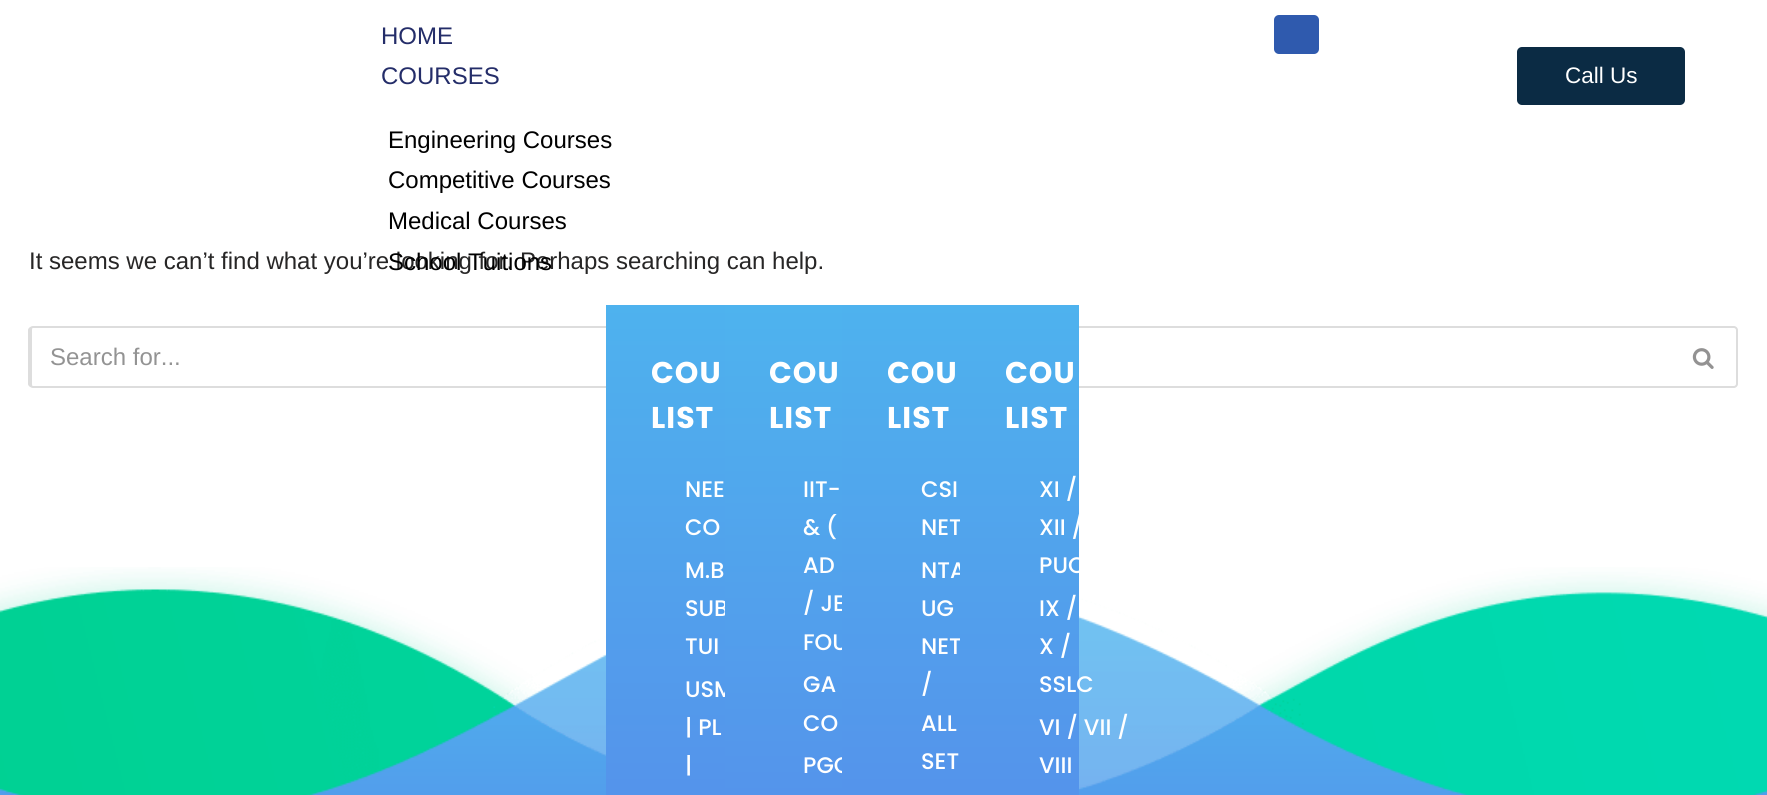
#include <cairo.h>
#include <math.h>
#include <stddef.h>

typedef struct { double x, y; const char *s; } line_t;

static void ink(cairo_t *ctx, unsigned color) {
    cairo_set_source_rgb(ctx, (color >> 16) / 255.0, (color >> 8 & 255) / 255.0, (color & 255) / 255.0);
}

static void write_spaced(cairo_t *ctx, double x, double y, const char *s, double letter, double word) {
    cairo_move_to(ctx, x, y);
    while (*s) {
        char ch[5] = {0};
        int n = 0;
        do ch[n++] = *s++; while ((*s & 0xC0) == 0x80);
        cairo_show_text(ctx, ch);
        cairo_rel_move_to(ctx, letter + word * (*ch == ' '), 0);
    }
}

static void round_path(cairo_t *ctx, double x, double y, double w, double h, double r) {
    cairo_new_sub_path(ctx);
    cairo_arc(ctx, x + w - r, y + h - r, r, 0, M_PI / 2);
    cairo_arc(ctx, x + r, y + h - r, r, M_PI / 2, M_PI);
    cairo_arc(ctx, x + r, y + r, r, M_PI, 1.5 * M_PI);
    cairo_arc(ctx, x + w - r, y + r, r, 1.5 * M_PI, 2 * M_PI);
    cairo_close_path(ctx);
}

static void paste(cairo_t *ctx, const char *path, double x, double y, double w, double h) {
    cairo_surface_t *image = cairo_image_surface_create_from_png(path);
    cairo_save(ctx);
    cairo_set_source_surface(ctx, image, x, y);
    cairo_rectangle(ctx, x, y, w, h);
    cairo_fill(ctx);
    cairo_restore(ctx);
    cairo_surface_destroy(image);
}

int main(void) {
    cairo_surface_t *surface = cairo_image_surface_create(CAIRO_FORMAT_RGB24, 1767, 795);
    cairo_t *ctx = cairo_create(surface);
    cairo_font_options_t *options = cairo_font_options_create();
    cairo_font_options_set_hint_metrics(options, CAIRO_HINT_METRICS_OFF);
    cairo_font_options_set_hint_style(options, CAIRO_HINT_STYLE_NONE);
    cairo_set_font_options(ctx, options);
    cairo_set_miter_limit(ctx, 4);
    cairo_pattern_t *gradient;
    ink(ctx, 0xFFFFFF);
    cairo_paint(ctx);
    cairo_select_font_face(ctx, "Liberation Sans", CAIRO_FONT_SLANT_NORMAL, CAIRO_FONT_WEIGHT_NORMAL);
    cairo_set_font_size(ctx, 24);
    ink(ctx, 0x242D69);
    cairo_move_to(ctx, 381, 44);
    cairo_show_text(ctx, "HOME");
    cairo_move_to(ctx, 381, 84);
    cairo_show_text(ctx, "COURSES");
    ink(ctx, 0x000000);
    {
        static const line_t items[] = {
            {388, 148, "Engineering Courses"},
            {388, 188, "Competitive Courses"},
            {388, 229, "Medical Courses"},
        };
        for (size_t i = 0; i < sizeof items / sizeof *items; i++) {
            cairo_move_to(ctx, items[i].x, items[i].y);
            cairo_show_text(ctx, items[i].s);
        }
    }
    ink(ctx, 0x272626);
    cairo_move_to(ctx, 29, 269);
    cairo_show_text(ctx, "It seems we can’t find what you’re looking for. Perhaps searching can help.");
    ink(ctx, 0x000000);
    cairo_move_to(ctx, 388, 270);
    cairo_show_text(ctx, "School Tuitions");
    ink(ctx, 0xDDDDDD);
    cairo_set_fill_rule(ctx, CAIRO_FILL_RULE_EVEN_ODD);
    cairo_new_path(ctx);
    cairo_move_to(ctx, 33, 326);
    cairo_line_to(ctx, 1671, 326);
    cairo_line_to(ctx, 1671, 388);
    cairo_line_to(ctx, 33, 388);
    cairo_curve_to(ctx, 31, 388, 28, 386, 28, 384);
    cairo_line_to(ctx, 28, 330);
    cairo_curve_to(ctx, 28, 328, 31, 326, 33, 326);
    cairo_close_path(ctx);
    cairo_move_to(ctx, 33, 328);
    cairo_line_to(ctx, 1671, 328);
    cairo_line_to(ctx, 1671, 386);
    cairo_line_to(ctx, 33, 386);
    cairo_curve_to(ctx, 32, 386, 32, 385, 32, 384);
    cairo_line_to(ctx, 32, 330);
    cairo_curve_to(ctx, 32, 329, 32, 328, 33, 328);
    cairo_close_path(ctx);
    cairo_fill(ctx);
    paste(ctx, "media/2.png", 0, 567, 1767, 228);
    gradient = cairo_pattern_create_linear(665, 305, 665, 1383);
    cairo_pattern_add_color_stop_rgba(gradient, 0, 0.306, 0.698, 0.933, 1);
    cairo_pattern_add_color_stop_rgba(gradient, 1, 0.361, 0.435, 0.906, 1);
    cairo_set_source(ctx, gradient);
    cairo_pattern_destroy(gradient);
    cairo_rectangle(ctx, 606, 305, 119, 490);
    cairo_fill(ctx);
    cairo_select_font_face(ctx, "Poppins", CAIRO_FONT_SLANT_NORMAL, CAIRO_FONT_WEIGHT_BOLD);
    cairo_set_font_size(ctx, 30);
    ink(ctx, 0xFFFFFF);
    write_spaced(ctx, 651, 383, "COU", 1, 0);
    write_spaced(ctx, 651, 428, "LIST", 1, 0);
    cairo_select_font_face(ctx, "Poppins Medium", CAIRO_FONT_SLANT_NORMAL, CAIRO_FONT_WEIGHT_NORMAL);
    cairo_set_font_size(ctx, 22.5);
    {
        static const line_t items[] = {
            {685, 497, "NEE"},
            {685, 535, "CO"},
            {685, 578, "M.B"},
            {685, 616, "SUB"},
            {685, 654, "TUI"},
            {685, 697, "USM"},
            {685, 735, "| PL"},
            {685, 773, "|"},
        };
        for (size_t i = 0; i < sizeof items / sizeof *items; i++) {
            cairo_move_to(ctx, items[i].x, items[i].y);
            cairo_show_text(ctx, items[i].s);
        }
    }
    gradient = cairo_pattern_create_linear(783, 305, 783, 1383);
    cairo_pattern_add_color_stop_rgba(gradient, 0, 0.306, 0.702, 0.933, 1);
    cairo_pattern_add_color_stop_rgba(gradient, 1, 0.361, 0.435, 0.906, 1);
    cairo_set_source(ctx, gradient);
    cairo_pattern_destroy(gradient);
    cairo_rectangle(ctx, 725, 305, 117, 490);
    cairo_fill(ctx);
    cairo_select_font_face(ctx, "Poppins", CAIRO_FONT_SLANT_NORMAL, CAIRO_FONT_WEIGHT_BOLD);
    cairo_set_font_size(ctx, 30);
    ink(ctx, 0xFFFFFF);
    write_spaced(ctx, 769, 383, "COU", 1, 0);
    write_spaced(ctx, 769, 428, "LIST", 1, 0);
    cairo_select_font_face(ctx, "Poppins Medium", CAIRO_FONT_SLANT_NORMAL, CAIRO_FONT_WEIGHT_NORMAL);
    cairo_set_font_size(ctx, 22.5);
    {
        static const line_t items[] = {
            {803, 497, "IIT-"},
            {803, 535, "& ("},
            {803, 573, "AD"},
            {803, 611, "/ JE"},
            {803, 650, "FOU"},
            {803, 692, "GA"},
            {803, 731, "CO"},
            {803, 773, "PGC"},
        };
        for (size_t i = 0; i < sizeof items / sizeof *items; i++) {
            cairo_move_to(ctx, items[i].x, items[i].y);
            cairo_show_text(ctx, items[i].s);
        }
    }
    gradient = cairo_pattern_create_linear(901, 305, 901, 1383);
    cairo_pattern_add_color_stop_rgba(gradient, 0, 0.306, 0.698, 0.933, 1);
    cairo_pattern_add_color_stop_rgba(gradient, 1, 0.361, 0.435, 0.906, 1);
    cairo_set_source(ctx, gradient);
    cairo_pattern_destroy(gradient);
    cairo_rectangle(ctx, 842, 305, 118, 490);
    cairo_fill(ctx);
    cairo_select_font_face(ctx, "Poppins", CAIRO_FONT_SLANT_NORMAL, CAIRO_FONT_WEIGHT_BOLD);
    cairo_set_font_size(ctx, 30);
    ink(ctx, 0xFFFFFF);
    write_spaced(ctx, 887, 383, "COU", 1, 0);
    write_spaced(ctx, 887, 428, "LIST", 1, 0);
    cairo_select_font_face(ctx, "Poppins Medium", CAIRO_FONT_SLANT_NORMAL, CAIRO_FONT_WEIGHT_NORMAL);
    cairo_set_font_size(ctx, 22.5);
    {
        static const line_t items[] = {
            {921, 497, "CSI"},
            {921, 535, "NET"},
            {921, 578, "NTA"},
            {921, 616, "UG"},
            {921, 654, "NET"},
            {921, 692, "/"},
            {921, 731, "ALL"},
            {921, 769, "SET"},
        };
        for (size_t i = 0; i < sizeof items / sizeof *items; i++) {
            cairo_move_to(ctx, items[i].x, items[i].y);
            cairo_show_text(ctx, items[i].s);
        }
    }
    gradient = cairo_pattern_create_linear(1019, 305, 1019, 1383);
    cairo_pattern_add_color_stop_rgba(gradient, 0, 0.306, 0.698, 0.933, 1);
    cairo_pattern_add_color_stop_rgba(gradient, 1, 0.361, 0.435, 0.906, 1);
    cairo_set_source(ctx, gradient);
    cairo_pattern_destroy(gradient);
    cairo_rectangle(ctx, 960, 305, 119, 490);
    cairo_fill(ctx);
    cairo_select_font_face(ctx, "Poppins", CAIRO_FONT_SLANT_NORMAL, CAIRO_FONT_WEIGHT_BOLD);
    cairo_set_font_size(ctx, 30);
    ink(ctx, 0xFFFFFF);
    write_spaced(ctx, 1005, 383, "COU", 1, 0);
    write_spaced(ctx, 1005, 428, "LIST", 1, 0);
    cairo_select_font_face(ctx, "Poppins Medium", CAIRO_FONT_SLANT_NORMAL, CAIRO_FONT_WEIGHT_NORMAL);
    cairo_set_font_size(ctx, 22.5);
    {
        static const line_t items[] = {
            {1039, 497, "XI /"},
            {1039, 535, "XII /"},
            {1039, 573, "PUC"},
            {1039, 616, "IX /"},
            {1039, 654, "X /"},
            {1039, 692, "SSLC"},
            {1039, 735, "VI / VII /"},
            {1039, 773, "VIII"},
        };
        for (size_t i = 0; i < sizeof items / sizeof *items; i++) {
            cairo_move_to(ctx, items[i].x, items[i].y);
            cairo_show_text(ctx, items[i].s);
        }
    }
    ink(ctx, 0x2F5AAE);
    round_path(ctx, 1274, 15, 45, 39, 5);
    cairo_fill(ctx);
    ink(ctx, 0x0B2B44);
    round_path(ctx, 1517, 47, 168, 58, 5);
    cairo_fill(ctx);
    cairo_select_font_face(ctx, "Liberation Sans", CAIRO_FONT_SLANT_NORMAL, CAIRO_FONT_WEIGHT_NORMAL);
    ink(ctx, 0xFFFFFF);
    cairo_move_to(ctx, 1565, 83);
    cairo_show_text(ctx, "Call Us");
    cairo_set_font_size(ctx, 24);
    ink(ctx, 0x939393);
    cairo_move_to(ctx, 50, 365);
    cairo_show_text(ctx, "Search for...");
    ink(ctx, 0xDDDDDD);
    cairo_new_path(ctx);
    cairo_move_to(ctx, 1671, 326);
    cairo_line_to(ctx, 1734, 326);
    cairo_curve_to(ctx, 1736, 326, 1738, 328, 1738, 330);
    cairo_line_to(ctx, 1738, 384);
    cairo_curve_to(ctx, 1738, 386, 1736, 388, 1734, 388);
    cairo_line_to(ctx, 1671, 388);
    cairo_close_path(ctx);
    cairo_move_to(ctx, 1671, 328);
    cairo_line_to(ctx, 1734, 328);
    cairo_curve_to(ctx, 1735, 328, 1736, 329, 1736, 330);
    cairo_line_to(ctx, 1736, 384);
    cairo_curve_to(ctx, 1736, 385, 1735, 386, 1734, 386);
    cairo_line_to(ctx, 1671, 386);
    cairo_close_path(ctx);
    cairo_fill(ctx);
    paste(ctx, "media/1.png", 1692, 348, 22, 21);
    cairo_surface_write_to_png(surface, "image.png");
    cairo_font_options_destroy(options);
    cairo_destroy(ctx);
    cairo_surface_destroy(surface);
    return 0;
}
